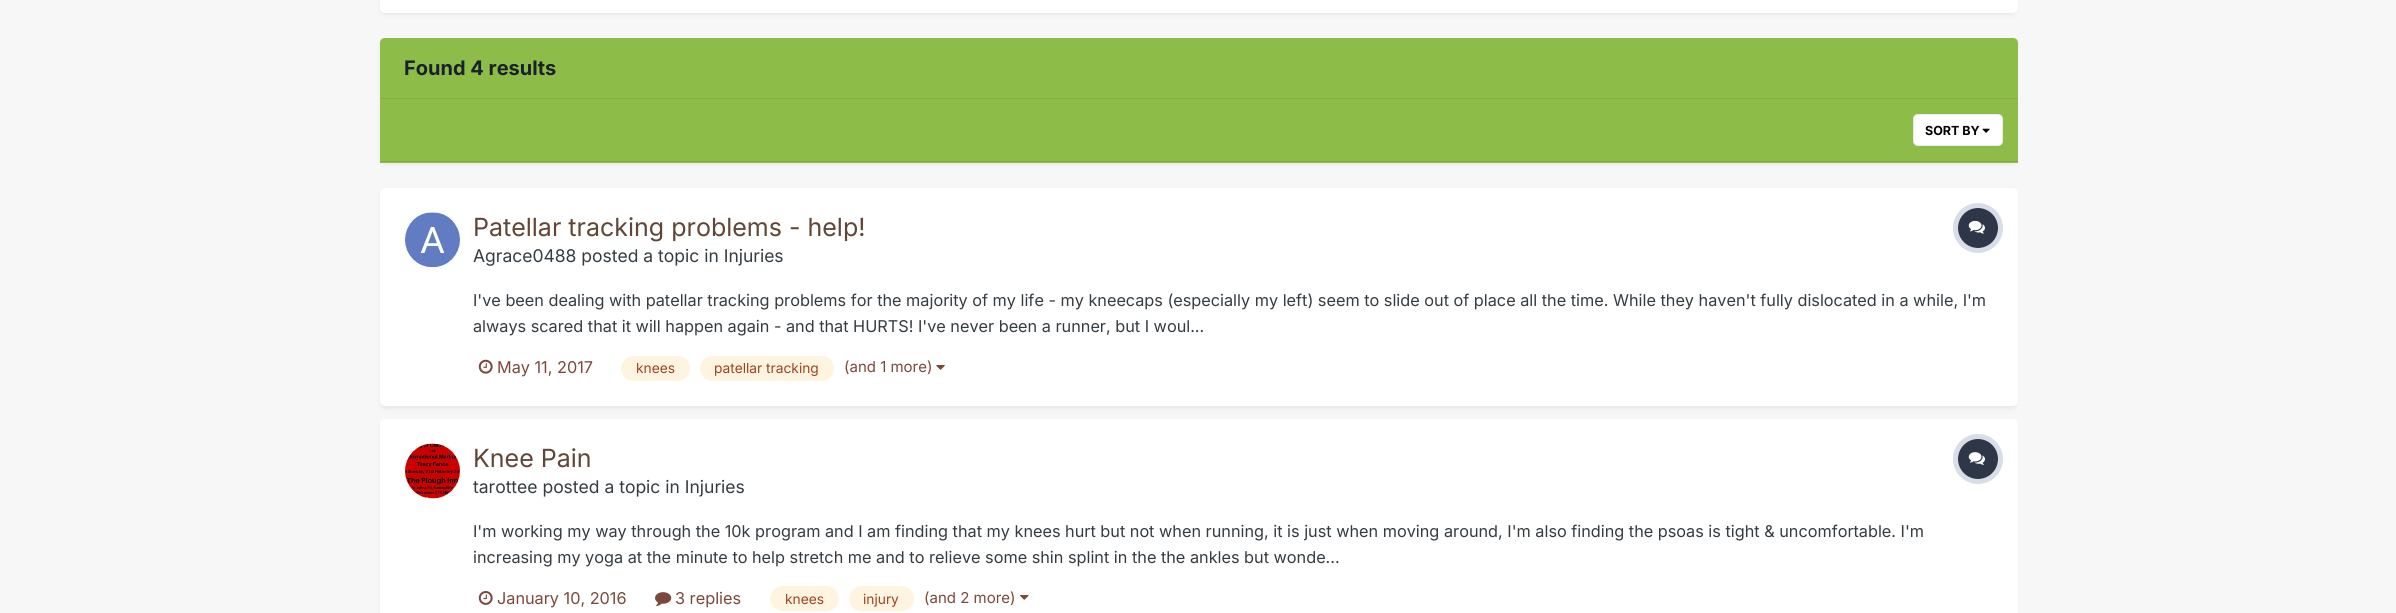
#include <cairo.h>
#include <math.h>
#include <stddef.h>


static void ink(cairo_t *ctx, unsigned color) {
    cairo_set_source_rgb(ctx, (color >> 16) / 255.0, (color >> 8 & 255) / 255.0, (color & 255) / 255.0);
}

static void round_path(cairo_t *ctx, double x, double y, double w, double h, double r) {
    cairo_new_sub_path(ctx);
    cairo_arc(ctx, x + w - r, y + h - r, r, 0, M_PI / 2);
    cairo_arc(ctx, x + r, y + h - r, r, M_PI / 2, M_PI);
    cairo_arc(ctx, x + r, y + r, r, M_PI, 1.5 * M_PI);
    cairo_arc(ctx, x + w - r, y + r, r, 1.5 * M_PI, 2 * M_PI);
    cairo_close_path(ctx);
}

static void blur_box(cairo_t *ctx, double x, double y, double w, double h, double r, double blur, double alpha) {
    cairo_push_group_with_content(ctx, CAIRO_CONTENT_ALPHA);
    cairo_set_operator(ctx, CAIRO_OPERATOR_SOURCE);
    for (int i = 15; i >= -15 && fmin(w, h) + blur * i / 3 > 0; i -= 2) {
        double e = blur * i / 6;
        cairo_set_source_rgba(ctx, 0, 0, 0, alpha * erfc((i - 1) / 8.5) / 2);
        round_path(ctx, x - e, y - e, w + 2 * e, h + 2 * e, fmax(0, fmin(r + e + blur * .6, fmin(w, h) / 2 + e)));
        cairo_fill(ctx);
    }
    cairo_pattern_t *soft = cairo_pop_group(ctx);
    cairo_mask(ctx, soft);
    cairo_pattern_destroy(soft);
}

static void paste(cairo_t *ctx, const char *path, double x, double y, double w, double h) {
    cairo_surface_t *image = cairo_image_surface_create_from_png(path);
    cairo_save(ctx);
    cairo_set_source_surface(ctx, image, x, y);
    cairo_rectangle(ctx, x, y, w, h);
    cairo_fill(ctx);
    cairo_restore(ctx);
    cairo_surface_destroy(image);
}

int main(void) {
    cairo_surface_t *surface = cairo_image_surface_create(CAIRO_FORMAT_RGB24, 2396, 613);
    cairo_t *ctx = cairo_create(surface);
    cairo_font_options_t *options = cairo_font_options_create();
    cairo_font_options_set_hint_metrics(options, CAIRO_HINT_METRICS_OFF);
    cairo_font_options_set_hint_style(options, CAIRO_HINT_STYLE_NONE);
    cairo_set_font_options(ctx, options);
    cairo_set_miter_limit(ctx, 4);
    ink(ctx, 0xF7F7F7);
    cairo_paint(ctx);
    ink(ctx, 0x2D3748);
    blur_box(ctx, 381, -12, 1635, 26, 4, 2.5, 0.1);
    ink(ctx, 0xFFFFFF);
    round_path(ctx, 380, -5, 1638, 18, 5);
    cairo_fill(ctx);
    ink(ctx, 0x2D3748);
    blur_box(ctx, 381, 41, 1635, 123, 4, 2.5, 0.1);
    ink(ctx, 0x8DBD48);
    cairo_new_path(ctx);
    cairo_move_to(ctx, 385, 38);
    cairo_line_to(ctx, 2013, 38);
    cairo_curve_to(ctx, 2016, 38, 2018, 40, 2018, 43);
    cairo_line_to(ctx, 2018, 99);
    cairo_line_to(ctx, 380, 99);
    cairo_line_to(ctx, 380, 43);
    cairo_curve_to(ctx, 380, 40, 382, 38, 385, 38);
    cairo_close_path(ctx);
    cairo_fill(ctx);
    ink(ctx, 0x8AAB46);
    cairo_rectangle(ctx, 380, 98, 1638, 1);
    cairo_fill(ctx);
    cairo_select_font_face(ctx, "Inter", CAIRO_FONT_SLANT_NORMAL, CAIRO_FONT_WEIGHT_BOLD);
    cairo_set_font_size(ctx, 20);
    ink(ctx, 0x1A202C);
    cairo_move_to(ctx, 404, 75);
    cairo_show_text(ctx, "Found 4 results");
    ink(ctx, 0x8DBD48);
    cairo_rectangle(ctx, 380, 99, 1638, 64);
    cairo_fill(ctx);
    ink(ctx, 0x80AA47);
    cairo_rectangle(ctx, 380, 161, 1638, 1);
    cairo_fill(ctx);
    ink(ctx, 0xFFFFFF);
    round_path(ctx, 1913, 114, 90, 32, 5);
    cairo_fill(ctx);
    paste(ctx, "media/1.png", 1982, 128, 8, 5);
    round_path(ctx, 1913.5, 114.5, 89, 31, 4.5);
    cairo_set_source_rgba(ctx, 0.208, 0.235, 0.255, 0.1);
    cairo_set_line_width(ctx, 1);
    cairo_stroke(ctx);
    cairo_set_font_size(ctx, 12.5);
    ink(ctx, 0x000000);
    cairo_move_to(ctx, 1925, 135);
    cairo_show_text(ctx, "SORT BY");
    ink(ctx, 0x2D3748);
    blur_box(ctx, 381, 191, 1635, 217, 4, 2.5, 0.1);
    ink(ctx, 0xFFFFFF);
    round_path(ctx, 380, 188, 1638, 218, 5);
    cairo_fill(ctx);
    paste(ctx, "media/2.png", 405, 212, 55, 55);
    cairo_select_font_face(ctx, "Inter", CAIRO_FONT_SLANT_NORMAL, CAIRO_FONT_WEIGHT_NORMAL);
    cairo_set_font_size(ctx, 25);
    ink(ctx, 0x614638);
    cairo_move_to(ctx, 473, 236);
    cairo_show_text(ctx, "Patellar tracking problems - help!");
    cairo_set_font_size(ctx, 17.5);
    ink(ctx, 0x353C41);
    cairo_move_to(ctx, 473, 262);
    cairo_show_text(ctx, "Agrace0488 posted a topic in Injuries");
    cairo_new_path(ctx);
    cairo_arc(ctx, 1978, 228, 22.5, 0, 2 * M_PI);
    ink(ctx, 0xD8DDE8);
    cairo_set_line_width(ctx, 5);
    cairo_stroke(ctx);
    ink(ctx, 0x2D3748);
    cairo_arc(ctx, 1978, 228, 20, 0, 2 * M_PI);
    cairo_fill(ctx);
    paste(ctx, "media/3.png", 1968, 220, 17, 14);
    cairo_set_font_size(ctx, 16.25);
    ink(ctx, 0x353C41);
    cairo_move_to(ctx, 473, 306);
    cairo_show_text(ctx, "I've been dealing with patellar tracking problems for the majority of my life - my kneecaps (especially my left) seem to slide out of place all the time. While they haven't fully dislocated in a while, I'm");
    cairo_move_to(ctx, 473, 332);
    cairo_show_text(ctx, "always scared that it will happen again - and that HURTS! I've never been a runner, but I woul...");
    paste(ctx, "media/4.png", 478, 359, 15, 15);
    ink(ctx, 0x7B483B);
    cairo_move_to(ctx, 497, 373);
    cairo_show_text(ctx, "May 11, 2017");
    ink(ctx, 0xFFF4DF);
    round_path(ctx, 621, 356, 69, 25, 12.5);
    cairo_fill(ctx);
    cairo_set_font_size(ctx, 13.75);
    ink(ctx, 0x9C4221);
    cairo_move_to(ctx, 636, 373);
    cairo_show_text(ctx, "knees");
    ink(ctx, 0xFFF4DF);
    round_path(ctx, 700, 356, 134, 25, 12.5);
    cairo_fill(ctx);
    ink(ctx, 0x9C4221);
    cairo_move_to(ctx, 714, 373);
    cairo_show_text(ctx, "patellar tracking");
    cairo_set_font_size(ctx, 15);
    ink(ctx, 0x7B483B);
    cairo_move_to(ctx, 844, 372);
    cairo_show_text(ctx, "(and 1 more)");
    paste(ctx, "media/5.png", 936, 365, 9, 5);
    ink(ctx, 0x2D3748);
    blur_box(ctx, 381, 423, 1635, 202, 4, 2.5, 0.1);
    ink(ctx, 0xFFFFFF);
    round_path(ctx, 380, 419, 1638, 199, 5);
    cairo_fill(ctx);
    paste(ctx, "media/6.png", 405, 443, 55, 56);
    cairo_set_font_size(ctx, 25);
    ink(ctx, 0x614638);
    cairo_move_to(ctx, 473, 467);
    cairo_show_text(ctx, "Knee Pain");
    cairo_set_font_size(ctx, 17.5);
    ink(ctx, 0x353C41);
    cairo_move_to(ctx, 473, 493);
    cairo_show_text(ctx, "tarottee posted a topic in Injuries");
    cairo_new_path(ctx);
    cairo_arc(ctx, 1978, 459, 22.5, 0, 2 * M_PI);
    ink(ctx, 0xD8DDE8);
    cairo_stroke(ctx);
    ink(ctx, 0x2D3748);
    cairo_arc(ctx, 1978, 459, 20, 0, 2 * M_PI);
    cairo_fill(ctx);
    paste(ctx, "media/7.png", 1968, 452, 17, 13);
    cairo_set_font_size(ctx, 16.25);
    ink(ctx, 0x353C41);
    cairo_move_to(ctx, 473, 537);
    cairo_show_text(ctx, "I'm working my way through the 10k program and I am finding that my knees hurt but not when running, it is just when moving around, I'm also finding the psoas is tight & uncomfortable. I'm");
    cairo_move_to(ctx, 473, 563);
    cairo_show_text(ctx, "increasing my yoga at the minute to help stretch me and to relieve some shin splint in the the ankles but wonde...");
    paste(ctx, "media/8.png", 478, 591, 15, 14);
    ink(ctx, 0x7B483B);
    cairo_move_to(ctx, 497, 604);
    cairo_show_text(ctx, "January 10, 2016");
    paste(ctx, "media/9.png", 655, 592, 17, 14);
    cairo_move_to(ctx, 675, 604);
    cairo_show_text(ctx, "3 replies");
    ink(ctx, 0xFFF4DF);
    round_path(ctx, 770, 586, 69, 25, 12.5);
    cairo_fill(ctx);
    cairo_set_font_size(ctx, 13.75);
    ink(ctx, 0x9C4221);
    cairo_move_to(ctx, 785, 604);
    cairo_show_text(ctx, "knees");
    ink(ctx, 0xFFF4DF);
    round_path(ctx, 849, 586, 65, 25, 12.5);
    cairo_fill(ctx);
    ink(ctx, 0x9C4221);
    cairo_move_to(ctx, 863, 604);
    cairo_show_text(ctx, "injury");
    cairo_set_font_size(ctx, 15);
    ink(ctx, 0x7B483B);
    cairo_move_to(ctx, 924, 603);
    cairo_show_text(ctx, "(and 2 more)");
    paste(ctx, "media/10.png", 1020, 595, 9, 5);
    cairo_surface_write_to_png(surface, "image.png");
    cairo_font_options_destroy(options);
    cairo_destroy(ctx);
    cairo_surface_destroy(surface);
    return 0;
}
